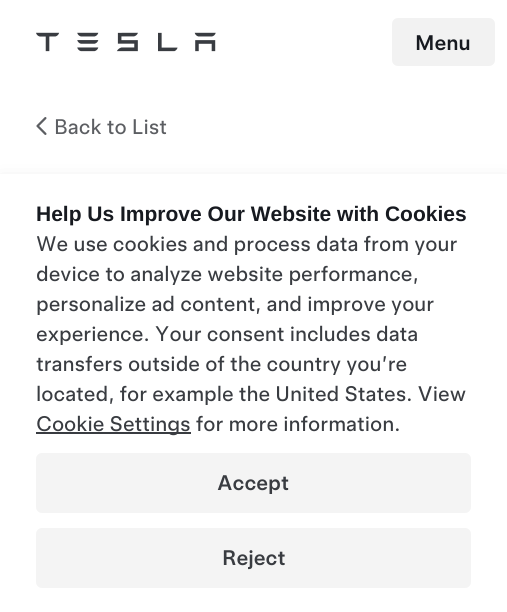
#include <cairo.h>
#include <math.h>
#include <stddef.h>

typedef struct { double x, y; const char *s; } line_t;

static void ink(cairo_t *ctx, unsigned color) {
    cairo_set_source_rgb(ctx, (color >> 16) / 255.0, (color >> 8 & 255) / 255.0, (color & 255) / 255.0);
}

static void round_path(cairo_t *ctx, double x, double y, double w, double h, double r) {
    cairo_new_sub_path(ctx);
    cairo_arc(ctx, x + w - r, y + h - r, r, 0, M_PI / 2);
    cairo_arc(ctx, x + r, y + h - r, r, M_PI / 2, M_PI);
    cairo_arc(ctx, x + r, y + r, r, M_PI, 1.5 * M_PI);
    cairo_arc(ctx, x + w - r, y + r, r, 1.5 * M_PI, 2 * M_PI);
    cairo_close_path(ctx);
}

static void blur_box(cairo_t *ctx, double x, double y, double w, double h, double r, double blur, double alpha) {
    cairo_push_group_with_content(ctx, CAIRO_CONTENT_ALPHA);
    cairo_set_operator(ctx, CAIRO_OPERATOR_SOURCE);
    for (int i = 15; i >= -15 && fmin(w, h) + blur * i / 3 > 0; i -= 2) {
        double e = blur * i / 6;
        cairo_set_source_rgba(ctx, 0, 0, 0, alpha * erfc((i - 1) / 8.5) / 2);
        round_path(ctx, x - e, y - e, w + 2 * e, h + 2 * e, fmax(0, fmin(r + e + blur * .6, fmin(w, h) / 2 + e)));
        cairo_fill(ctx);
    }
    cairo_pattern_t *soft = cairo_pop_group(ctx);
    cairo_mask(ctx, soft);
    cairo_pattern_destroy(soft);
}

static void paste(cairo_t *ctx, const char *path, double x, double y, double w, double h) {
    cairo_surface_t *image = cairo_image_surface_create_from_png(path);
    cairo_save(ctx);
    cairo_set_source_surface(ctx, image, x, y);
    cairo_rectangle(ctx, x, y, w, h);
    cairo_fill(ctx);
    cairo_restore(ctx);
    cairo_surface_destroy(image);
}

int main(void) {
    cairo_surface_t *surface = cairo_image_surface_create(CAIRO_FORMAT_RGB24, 507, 612);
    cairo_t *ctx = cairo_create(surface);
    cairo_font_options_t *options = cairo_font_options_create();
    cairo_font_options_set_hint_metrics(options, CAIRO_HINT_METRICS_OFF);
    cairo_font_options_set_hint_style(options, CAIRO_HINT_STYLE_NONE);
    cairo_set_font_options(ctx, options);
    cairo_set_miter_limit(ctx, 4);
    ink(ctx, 0xFFFFFF);
    cairo_paint(ctx);
    paste(ctx, "media/1.png", 36, 32, 180, 20);
    ink(ctx, 0xF2F2F2);
    round_path(ctx, 392, 18, 103, 48, 6);
    cairo_fill(ctx);
    cairo_select_font_face(ctx, "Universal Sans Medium", CAIRO_FONT_SLANT_NORMAL, CAIRO_FONT_WEIGHT_NORMAL);
    cairo_set_font_size(ctx, 21);
    ink(ctx, 0x171A20);
    cairo_move_to(ctx, 415, 50);
    cairo_show_text(ctx, "Menu");
    paste(ctx, "media/2.png", 36, 117, 11, 18);
    cairo_select_font_face(ctx, "Universal Sans", CAIRO_FONT_SLANT_NORMAL, CAIRO_FONT_WEIGHT_NORMAL);
    ink(ctx, 0x5C5E62);
    cairo_move_to(ctx, 54, 134);
    cairo_show_text(ctx, "Back to List");
    ink(ctx, 0x000000);
    blur_box(ctx, 0, 186, 507, 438, 0, 12, 0.16);
    ink(ctx, 0xFFFFFF);
    cairo_rectangle(ctx, 0, 174, 507, 438);
    cairo_fill(ctx);
    cairo_select_font_face(ctx, "Liberation Sans", CAIRO_FONT_SLANT_NORMAL, CAIRO_FONT_WEIGHT_BOLD);
    ink(ctx, 0x171A20);
    cairo_move_to(ctx, 36, 221);
    cairo_show_text(ctx, "Help Us Improve Our Website with Cookies");
    cairo_select_font_face(ctx, "Universal Sans", CAIRO_FONT_SLANT_NORMAL, CAIRO_FONT_WEIGHT_NORMAL);
    ink(ctx, 0x393C41);
    {
        static const line_t items[] = {
            {36, 251, "We use cookies and process data from your"},
            {36, 281, "device to analyze website performance,"},
            {36, 311, "personalize ad content, and improve your"},
            {36, 341, "experience. Your consent includes data"},
            {36, 371, "transfers outside of the country you’re"},
            {36, 401, "located, for example the United States. View"},
        };
        for (size_t i = 0; i < sizeof items / sizeof *items; i++) {
            cairo_move_to(ctx, items[i].x, items[i].y);
            cairo_show_text(ctx, items[i].s);
        }
    }
    cairo_rectangle(ctx, 36, 432, 155, 2);
    cairo_fill(ctx);
    cairo_move_to(ctx, 36, 431);
    cairo_show_text(ctx, "Cookie Settings for more information.");
    ink(ctx, 0xF4F4F4);
    round_path(ctx, 36, 453, 435, 60, 6);
    cairo_fill(ctx);
    cairo_select_font_face(ctx, "Universal Sans Medium", CAIRO_FONT_SLANT_NORMAL, CAIRO_FONT_WEIGHT_NORMAL);
    ink(ctx, 0x393C41);
    cairo_move_to(ctx, 217, 490);
    cairo_show_text(ctx, "Accept");
    ink(ctx, 0xF4F4F4);
    round_path(ctx, 36, 528, 435, 60, 6);
    cairo_fill(ctx);
    ink(ctx, 0x393C41);
    cairo_move_to(ctx, 222, 565);
    cairo_show_text(ctx, "Reject");
    cairo_surface_write_to_png(surface, "image.png");
    cairo_font_options_destroy(options);
    cairo_destroy(ctx);
    cairo_surface_destroy(surface);
    return 0;
}
